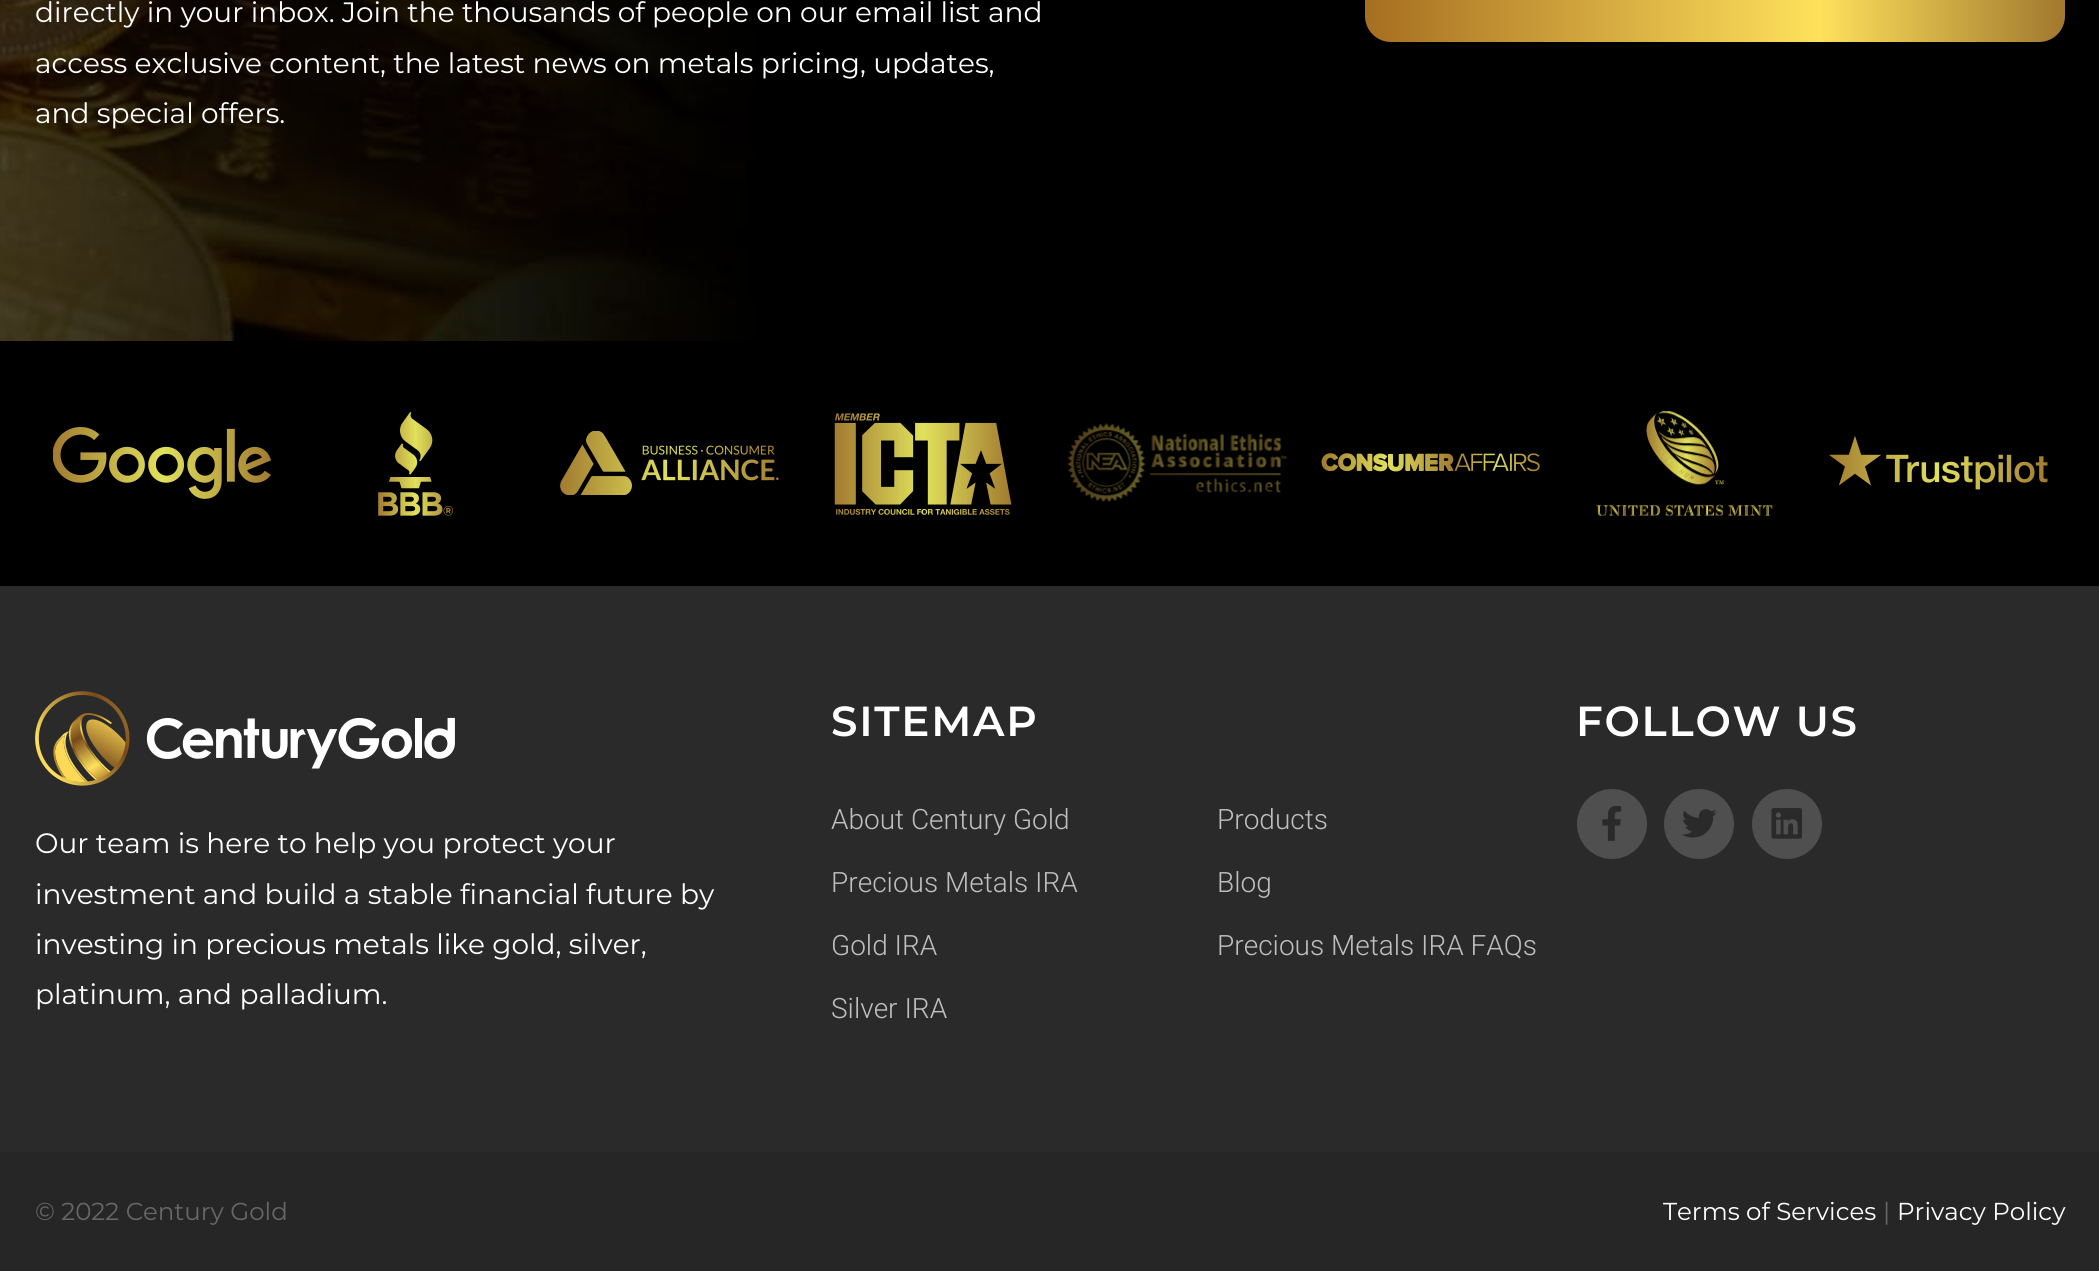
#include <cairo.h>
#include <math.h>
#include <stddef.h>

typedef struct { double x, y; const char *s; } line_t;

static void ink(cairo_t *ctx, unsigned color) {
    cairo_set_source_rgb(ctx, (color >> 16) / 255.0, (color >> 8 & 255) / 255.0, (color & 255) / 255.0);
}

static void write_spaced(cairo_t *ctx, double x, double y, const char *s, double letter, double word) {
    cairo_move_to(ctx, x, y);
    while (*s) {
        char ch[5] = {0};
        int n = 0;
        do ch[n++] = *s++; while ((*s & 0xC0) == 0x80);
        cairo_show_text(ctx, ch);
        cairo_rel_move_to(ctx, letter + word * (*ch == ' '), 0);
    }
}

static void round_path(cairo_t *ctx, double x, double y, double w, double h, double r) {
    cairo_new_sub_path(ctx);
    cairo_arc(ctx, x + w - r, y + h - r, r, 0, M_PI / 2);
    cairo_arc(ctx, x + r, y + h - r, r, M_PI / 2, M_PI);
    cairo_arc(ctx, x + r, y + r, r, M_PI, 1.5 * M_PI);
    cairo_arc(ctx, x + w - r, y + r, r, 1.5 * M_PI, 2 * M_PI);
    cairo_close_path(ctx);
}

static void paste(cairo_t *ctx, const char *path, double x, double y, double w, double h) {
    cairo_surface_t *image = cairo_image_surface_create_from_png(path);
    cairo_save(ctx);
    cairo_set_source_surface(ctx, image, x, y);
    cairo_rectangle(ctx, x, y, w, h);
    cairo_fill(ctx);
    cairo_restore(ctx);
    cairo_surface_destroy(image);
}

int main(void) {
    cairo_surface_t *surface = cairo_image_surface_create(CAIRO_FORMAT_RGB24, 2099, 1271);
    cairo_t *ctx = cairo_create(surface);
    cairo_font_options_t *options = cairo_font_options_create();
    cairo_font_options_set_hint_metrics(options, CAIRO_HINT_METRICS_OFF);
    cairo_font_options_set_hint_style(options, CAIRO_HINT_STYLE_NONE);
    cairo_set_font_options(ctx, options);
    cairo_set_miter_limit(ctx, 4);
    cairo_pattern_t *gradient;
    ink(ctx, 0xFFFFFF);
    cairo_paint(ctx);
    paste(ctx, "media/1.png", 0, 0, 2099, 341);
    cairo_select_font_face(ctx, "Montserrat", CAIRO_FONT_SLANT_NORMAL, CAIRO_FONT_WEIGHT_NORMAL);
    cairo_set_font_size(ctx, 28);
    ink(ctx, 0xFFFFFF);
    {
        static const line_t items[] = {
            {35, 22, "directly in your inbox. Join the thousands of people on our email list and"},
            {35, 73, "access exclusive content, the latest news on metals pricing, updates,"},
            {35, 123, "and special offers."},
        };
        for (size_t i = 0; i < sizeof items / sizeof *items; i++) {
            cairo_move_to(ctx, items[i].x, items[i].y);
            cairo_show_text(ctx, items[i].s);
        }
    }
    gradient = cairo_pattern_create_linear(1365, -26, 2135, -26);
    cairo_pattern_add_color_stop_rgba(gradient, 0, 0.651, 0.431, 0.129, 1);
    cairo_pattern_add_color_stop_rgba(gradient, 0.59, 1, 0.882, 0.361, 1);
    cairo_pattern_add_color_stop_rgba(gradient, 0.9, 0.643, 0.482, 0.188, 1);
    cairo_pattern_add_color_stop_rgba(gradient, 1, 0.651, 0.431, 0.129, 1);
    cairo_set_source(ctx, gradient);
    cairo_pattern_destroy(gradient);
    round_path(ctx, 1365, -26, 700, 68, 26);
    cairo_fill(ctx);
    ink(ctx, 0x000000);
    cairo_rectangle(ctx, 0, 341, 2099, 245);
    cairo_fill(ctx);
    paste(ctx, "media/2.png", 53, 427, 218, 72);
    paste(ctx, "media/3.png", 378, 412, 76, 104);
    paste(ctx, "media/4.png", 560, 431, 219, 64);
    paste(ctx, "media/5.png", 834, 413, 178, 102);
    paste(ctx, "media/6.png", 1067, 423, 220, 79);
    paste(ctx, "media/7.png", 1321, 453, 219, 19);
    paste(ctx, "media/8.png", 1596, 411, 177, 105);
    paste(ctx, "media/9.png", 1829, 436, 219, 54);
    ink(ctx, 0x2A2A2A);
    cairo_rectangle(ctx, 0, 586, 2099, 566);
    cairo_fill(ctx);
    cairo_select_font_face(ctx, "Montserrat SemiBold", CAIRO_FONT_SLANT_NORMAL, CAIRO_FONT_WEIGHT_NORMAL);
    cairo_set_font_size(ctx, 42);
    ink(ctx, 0xFFFFFF);
    write_spaced(ctx, 831, 736, "SITEMAP", 1.75, 0);
    cairo_select_font_face(ctx, "Roboto Light", CAIRO_FONT_SLANT_NORMAL, CAIRO_FONT_WEIGHT_NORMAL);
    cairo_set_font_size(ctx, 28);
    ink(ctx, 0xBFBFBF);
    {
        static const line_t items[] = {
            {831, 829, "About Century Gold"},
            {1217, 829, "Products"},
            {831, 892, "Precious Metals IRA"},
            {1217, 892, "Blog"},
            {831, 955, "Gold IRA"},
            {1217, 955, "Precious Metals IRA FAQs"},
            {831, 1018, "Silver IRA"},
        };
        for (size_t i = 0; i < sizeof items / sizeof *items; i++) {
            cairo_move_to(ctx, items[i].x, items[i].y);
            cairo_show_text(ctx, items[i].s);
        }
    }
    cairo_select_font_face(ctx, "Montserrat SemiBold", CAIRO_FONT_SLANT_NORMAL, CAIRO_FONT_WEIGHT_NORMAL);
    cairo_set_font_size(ctx, 42);
    ink(ctx, 0xFFFFFF);
    write_spaced(ctx, 1576, 736, "FOLLOW US", 1.75, 0);
    ink(ctx, 0x4F4F4F);
    cairo_new_path(ctx);
    cairo_arc(ctx, 1612, 824, 35, 0, 2 * M_PI);
    cairo_fill(ctx);
    paste(ctx, "media/10.png", 1602, 806, 20, 35);
    cairo_arc(ctx, 1699, 824, 35, 0, 2 * M_PI);
    cairo_fill(ctx);
    paste(ctx, "media/11.png", 1682, 809, 35, 29);
    cairo_arc(ctx, 1787, 824, 35, 0, 2 * M_PI);
    cairo_fill(ctx);
    paste(ctx, "media/12.png", 1771, 808, 31, 31);
    paste(ctx, "media/13.png", 35, 691, 420, 95);
    cairo_select_font_face(ctx, "Montserrat", CAIRO_FONT_SLANT_NORMAL, CAIRO_FONT_WEIGHT_NORMAL);
    cairo_set_font_size(ctx, 28);
    ink(ctx, 0xFFFFFF);
    {
        static const line_t items[] = {
            {35, 853, "Our team is here to help you protect your"},
            {35, 904, "investment and build a stable financial future by"},
            {35, 954, "investing in precious metals like gold, silver,"},
            {35, 1004, "platinum, and palladium."},
        };
        for (size_t i = 0; i < sizeof items / sizeof *items; i++) {
            cairo_move_to(ctx, items[i].x, items[i].y);
            cairo_show_text(ctx, items[i].s);
        }
    }
    ink(ctx, 0x262626);
    cairo_rectangle(ctx, 0, 1152, 2099, 119);
    cairo_fill(ctx);
    cairo_set_font_size(ctx, 24.5);
    ink(ctx, 0x676767);
    cairo_move_to(ctx, 35, 1220);
    cairo_show_text(ctx, "© 2022 Century Gold");
    ink(ctx, 0xFFFFFF);
    cairo_move_to(ctx, 1663, 1220);
    cairo_show_text(ctx, "Terms of Services");
    ink(ctx, 0x676767);
    cairo_move_to(ctx, 1883, 1220);
    cairo_show_text(ctx, "|");
    ink(ctx, 0xFFFFFF);
    cairo_move_to(ctx, 1897, 1220);
    cairo_show_text(ctx, "Privacy Policy");
    cairo_surface_write_to_png(surface, "image.png");
    cairo_font_options_destroy(options);
    cairo_destroy(ctx);
    cairo_surface_destroy(surface);
    return 0;
}
